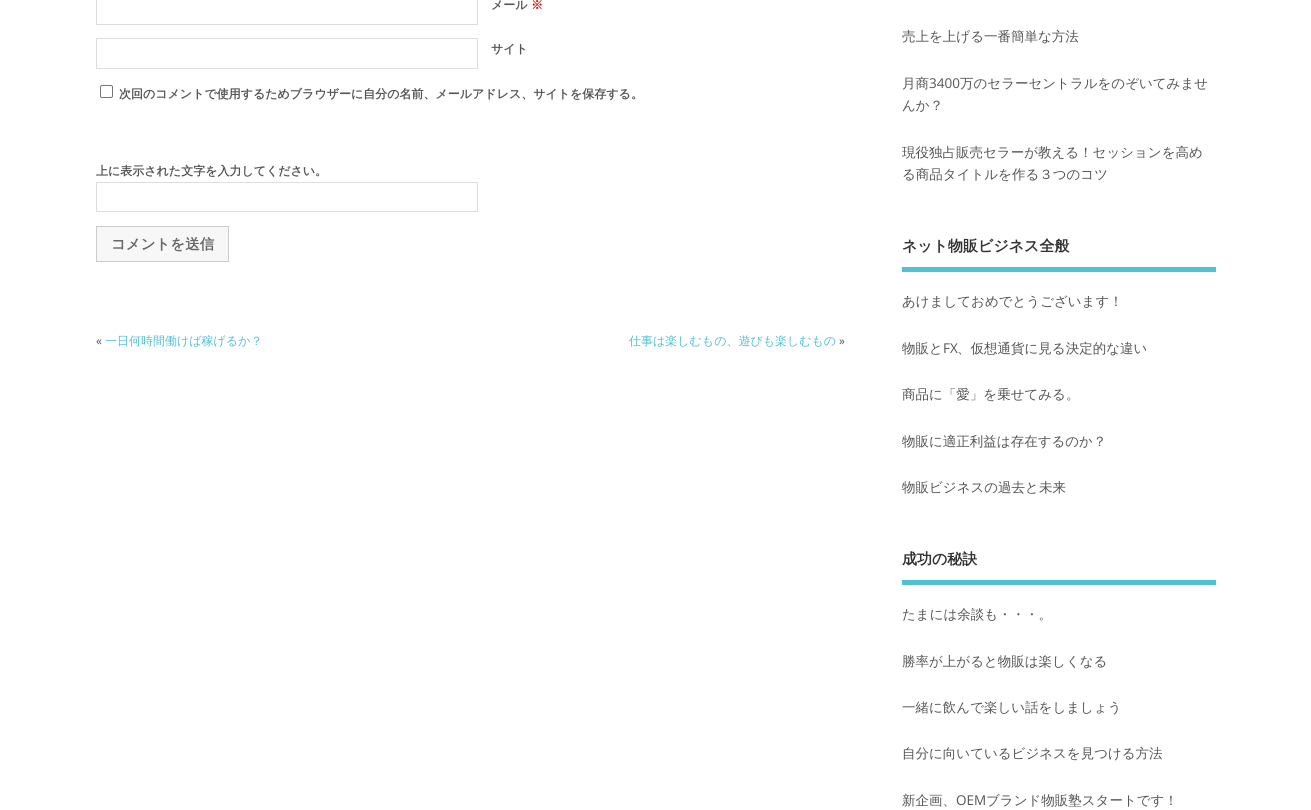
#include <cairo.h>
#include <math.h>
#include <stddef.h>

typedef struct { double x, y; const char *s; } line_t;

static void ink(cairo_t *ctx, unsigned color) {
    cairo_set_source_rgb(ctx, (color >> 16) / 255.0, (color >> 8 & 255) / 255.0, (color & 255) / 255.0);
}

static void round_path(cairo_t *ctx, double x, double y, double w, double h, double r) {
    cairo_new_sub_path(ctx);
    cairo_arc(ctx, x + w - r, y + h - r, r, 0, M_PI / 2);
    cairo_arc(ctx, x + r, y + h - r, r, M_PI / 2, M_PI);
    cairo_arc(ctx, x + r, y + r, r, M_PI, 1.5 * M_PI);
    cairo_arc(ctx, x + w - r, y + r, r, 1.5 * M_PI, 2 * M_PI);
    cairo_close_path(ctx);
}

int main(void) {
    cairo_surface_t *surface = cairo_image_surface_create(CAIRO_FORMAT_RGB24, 1311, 810);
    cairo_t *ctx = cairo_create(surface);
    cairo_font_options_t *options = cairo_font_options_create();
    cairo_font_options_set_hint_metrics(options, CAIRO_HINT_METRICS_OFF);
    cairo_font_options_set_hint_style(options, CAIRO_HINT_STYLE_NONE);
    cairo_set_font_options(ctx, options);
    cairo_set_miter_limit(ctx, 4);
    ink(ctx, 0xFFFFFF);
    cairo_paint(ctx);
    cairo_rectangle(ctx, 96.5, -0.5, 381, 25);
    ink(ctx, 0xDDDDDD);
    cairo_set_line_width(ctx, 1);
    cairo_stroke(ctx);
    cairo_select_font_face(ctx, "WenQuanYi Zen Hei", CAIRO_FONT_SLANT_NORMAL, CAIRO_FONT_WEIGHT_BOLD);
    cairo_set_font_size(ctx, 12);
    ink(ctx, 0x555555);
    cairo_move_to(ctx, 491, 9);
    cairo_show_text(ctx, "メール");
    ink(ctx, 0xD61111);
    cairo_move_to(ctx, 531, 9);
    cairo_show_text(ctx, "※");
    cairo_rectangle(ctx, 96.5, 38.5, 381, 30);
    ink(ctx, 0xDDDDDD);
    cairo_stroke(ctx);
    ink(ctx, 0x555555);
    cairo_move_to(ctx, 491, 53);
    cairo_show_text(ctx, "サイト");
    round_path(ctx, 100.5, 85.5, 12, 12, 1.5);
    ink(ctx, 0x767676);
    cairo_stroke(ctx);
    ink(ctx, 0x555555);
    cairo_move_to(ctx, 119, 98);
    cairo_show_text(ctx, "次回のコメントで使用するためブラウザーに自分の名前、メールアドレス、サイトを保存する。");
    cairo_move_to(ctx, 96, 175);
    cairo_show_text(ctx, "上に表示された文字を入力してください。");
    cairo_rectangle(ctx, 96.5, 182.5, 381, 29);
    ink(ctx, 0xDDDDDD);
    cairo_stroke(ctx);
    ink(ctx, 0xF7F7F7);
    cairo_rectangle(ctx, 96.5, 226.5, 132, 35);
    cairo_fill_preserve(ctx);
    ink(ctx, 0xCCCCCC);
    cairo_stroke(ctx);
    cairo_set_font_size(ctx, 14.5);
    ink(ctx, 0x666666);
    cairo_move_to(ctx, 111, 249);
    cairo_show_text(ctx, "コメントを送信");
    cairo_select_font_face(ctx, "Open Sans", CAIRO_FONT_SLANT_NORMAL, CAIRO_FONT_WEIGHT_NORMAL);
    cairo_set_font_size(ctx, 12);
    ink(ctx, 0x555555);
    cairo_move_to(ctx, 96, 345);
    cairo_show_text(ctx, "«");
    cairo_select_font_face(ctx, "WenQuanYi Zen Hei Medium", CAIRO_FONT_SLANT_NORMAL, CAIRO_FONT_WEIGHT_NORMAL);
    ink(ctx, 0x52C0D4);
    cairo_move_to(ctx, 105, 345);
    cairo_show_text(ctx, "一日何時間働けば稼げるか？");
    cairo_move_to(ctx, 629, 345);
    cairo_show_text(ctx, "仕事は楽しむもの、遊びも楽しむもの");
    cairo_select_font_face(ctx, "Open Sans", CAIRO_FONT_SLANT_NORMAL, CAIRO_FONT_WEIGHT_NORMAL);
    ink(ctx, 0x555555);
    cairo_move_to(ctx, 839, 345);
    cairo_show_text(ctx, "»");
    cairo_select_font_face(ctx, "WenQuanYi Zen Hei Medium", CAIRO_FONT_SLANT_NORMAL, CAIRO_FONT_WEIGHT_NORMAL);
    cairo_set_font_size(ctx, 13.5);
    cairo_move_to(ctx, 902, 41);
    cairo_show_text(ctx, "売上を上げる一番簡単な方法");
    cairo_move_to(ctx, 902, 88);
    cairo_show_text(ctx, "月商");
    cairo_select_font_face(ctx, "Open Sans", CAIRO_FONT_SLANT_NORMAL, CAIRO_FONT_WEIGHT_NORMAL);
    cairo_move_to(ctx, 929, 88);
    cairo_show_text(ctx, "3400");
    cairo_select_font_face(ctx, "WenQuanYi Zen Hei Medium", CAIRO_FONT_SLANT_NORMAL, CAIRO_FONT_WEIGHT_NORMAL);
    {
        static const line_t items[] = {
            {960, 88, "万のセラーセントラルをのぞいてみませ"},
            {902, 110, "んか？"},
            {902, 157, "現役独占販売セラーが教える！セッションを高め"},
            {902, 179, "る商品タイトルを作る３つのコツ"},
        };
        for (size_t i = 0; i < sizeof items / sizeof *items; i++) {
            cairo_move_to(ctx, items[i].x, items[i].y);
            cairo_show_text(ctx, items[i].s);
        }
    }
    ink(ctx, 0x52C0D4);
    cairo_rectangle(ctx, 902, 267, 314, 5);
    cairo_fill(ctx);
    cairo_select_font_face(ctx, "WenQuanYi Zen Hei", CAIRO_FONT_SLANT_NORMAL, CAIRO_FONT_WEIGHT_BOLD);
    cairo_set_font_size(ctx, 15);
    ink(ctx, 0x333333);
    cairo_move_to(ctx, 902, 251);
    cairo_show_text(ctx, "ネット物販ビジネス全般");
    cairo_select_font_face(ctx, "WenQuanYi Zen Hei Medium", CAIRO_FONT_SLANT_NORMAL, CAIRO_FONT_WEIGHT_NORMAL);
    cairo_set_font_size(ctx, 13.5);
    ink(ctx, 0x555555);
    cairo_move_to(ctx, 902, 306);
    cairo_show_text(ctx, "あけましておめでとうございます！");
    cairo_move_to(ctx, 902, 353);
    cairo_show_text(ctx, "物販と");
    cairo_select_font_face(ctx, "Open Sans", CAIRO_FONT_SLANT_NORMAL, CAIRO_FONT_WEIGHT_NORMAL);
    cairo_move_to(ctx, 943, 353);
    cairo_show_text(ctx, "FX");
    cairo_select_font_face(ctx, "WenQuanYi Zen Hei Medium", CAIRO_FONT_SLANT_NORMAL, CAIRO_FONT_WEIGHT_NORMAL);
    {
        static const line_t items[] = {
            {957, 353, "、仮想通貨に見る決定的な違い"},
            {902, 399, "商品に「愛」を乗せてみる。"},
            {902, 446, "物販に適正利益は存在するのか？"},
            {902, 492, "物販ビジネスの過去と未来"},
        };
        for (size_t i = 0; i < sizeof items / sizeof *items; i++) {
            cairo_move_to(ctx, items[i].x, items[i].y);
            cairo_show_text(ctx, items[i].s);
        }
    }
    ink(ctx, 0x52C0D4);
    cairo_rectangle(ctx, 902, 580, 314, 5);
    cairo_fill(ctx);
    cairo_select_font_face(ctx, "WenQuanYi Zen Hei", CAIRO_FONT_SLANT_NORMAL, CAIRO_FONT_WEIGHT_BOLD);
    cairo_set_font_size(ctx, 15);
    ink(ctx, 0x333333);
    cairo_move_to(ctx, 902, 564);
    cairo_show_text(ctx, "成功の秘訣");
    cairo_select_font_face(ctx, "WenQuanYi Zen Hei Medium", CAIRO_FONT_SLANT_NORMAL, CAIRO_FONT_WEIGHT_NORMAL);
    cairo_set_font_size(ctx, 13.5);
    ink(ctx, 0x555555);
    {
        static const line_t items[] = {
            {902, 619, "たまには余談も・・・。"},
            {902, 666, "勝率が上がると物販は楽しくなる"},
            {902, 712, "一緒に飲んで楽しい話をしましょう"},
            {902, 758, "自分に向いているビジネスを見つける方法"},
            {902, 805, "新企画、"},
        };
        for (size_t i = 0; i < sizeof items / sizeof *items; i++) {
            cairo_move_to(ctx, items[i].x, items[i].y);
            cairo_show_text(ctx, items[i].s);
        }
    }
    cairo_select_font_face(ctx, "Open Sans", CAIRO_FONT_SLANT_NORMAL, CAIRO_FONT_WEIGHT_NORMAL);
    cairo_move_to(ctx, 956, 805);
    cairo_show_text(ctx, "OEM");
    cairo_select_font_face(ctx, "WenQuanYi Zen Hei Medium", CAIRO_FONT_SLANT_NORMAL, CAIRO_FONT_WEIGHT_NORMAL);
    cairo_move_to(ctx, 986, 805);
    cairo_show_text(ctx, "ブランド物販塾スタートです！");
    cairo_surface_write_to_png(surface, "image.png");
    cairo_font_options_destroy(options);
    cairo_destroy(ctx);
    cairo_surface_destroy(surface);
    return 0;
}
